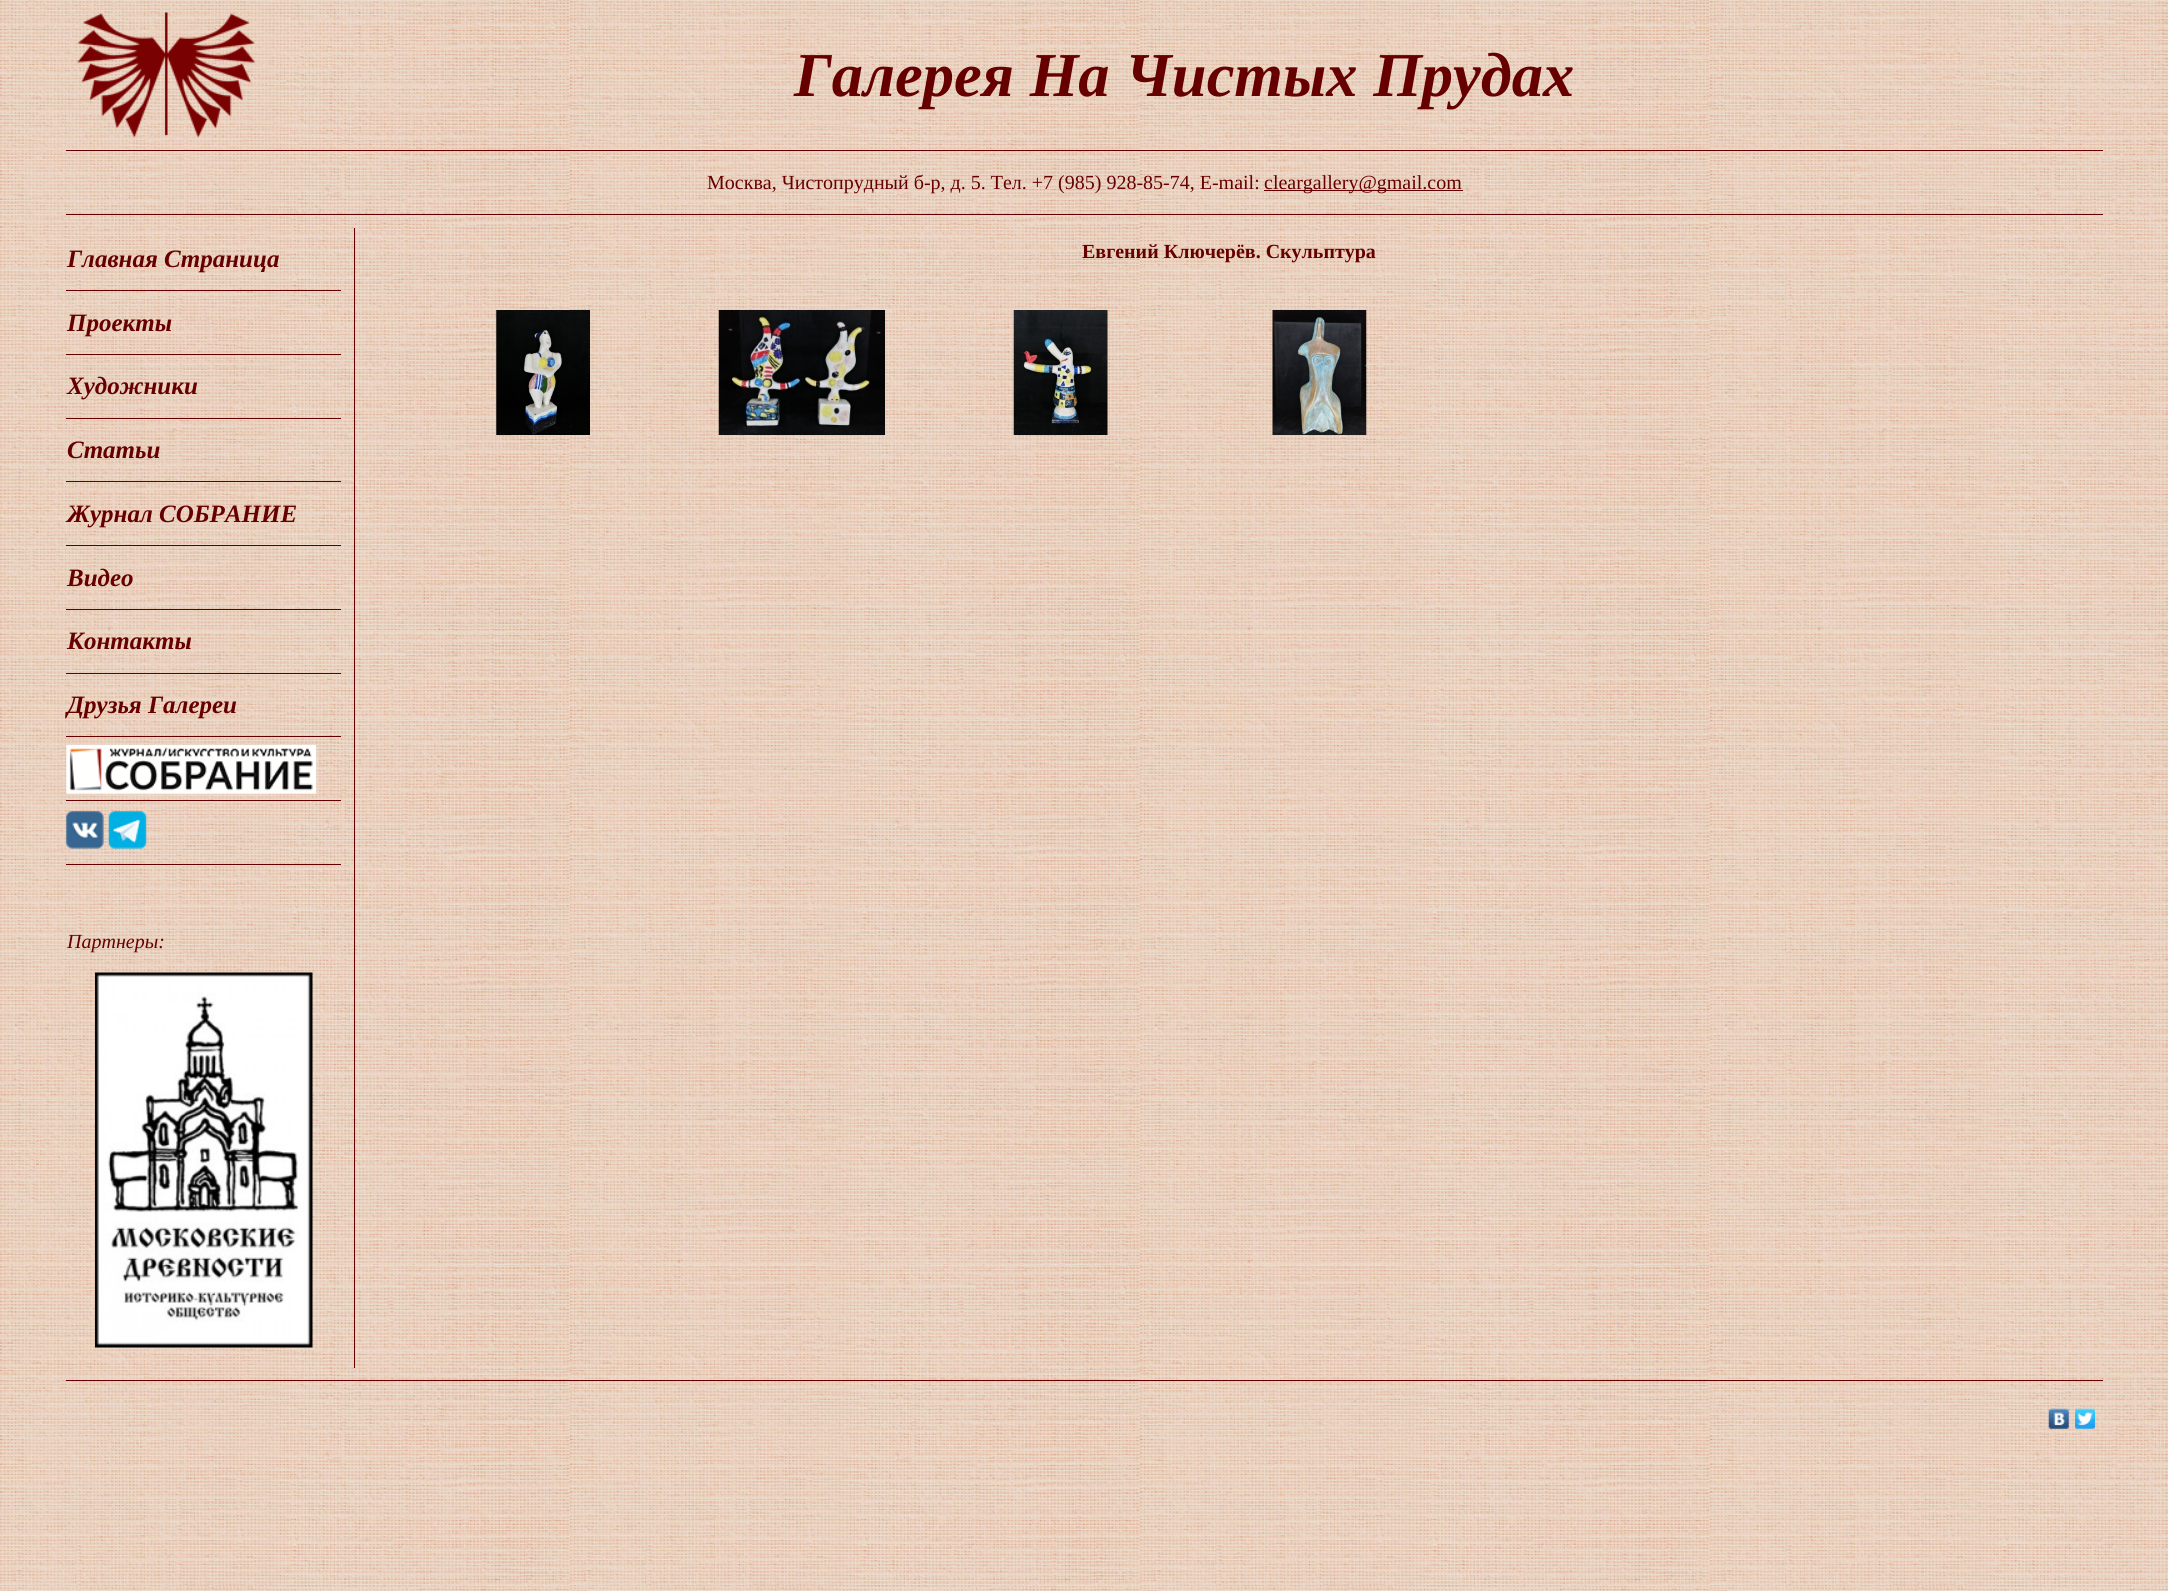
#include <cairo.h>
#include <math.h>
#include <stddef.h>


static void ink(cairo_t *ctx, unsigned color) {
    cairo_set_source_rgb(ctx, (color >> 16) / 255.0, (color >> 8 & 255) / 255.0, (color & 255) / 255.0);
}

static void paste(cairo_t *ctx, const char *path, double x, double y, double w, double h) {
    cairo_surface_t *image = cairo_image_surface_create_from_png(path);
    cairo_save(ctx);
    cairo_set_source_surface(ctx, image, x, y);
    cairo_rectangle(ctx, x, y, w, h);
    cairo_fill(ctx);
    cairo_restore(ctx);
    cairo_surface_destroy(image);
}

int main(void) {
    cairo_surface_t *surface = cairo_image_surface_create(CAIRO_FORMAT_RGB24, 2168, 1591);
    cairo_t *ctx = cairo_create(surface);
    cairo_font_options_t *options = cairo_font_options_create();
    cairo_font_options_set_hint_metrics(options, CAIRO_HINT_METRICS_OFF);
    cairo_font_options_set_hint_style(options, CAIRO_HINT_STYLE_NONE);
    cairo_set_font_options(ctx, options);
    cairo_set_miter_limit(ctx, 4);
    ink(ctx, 0xFFFFFF);
    cairo_paint(ctx);
    paste(ctx, "media/1.png", 0, 0, 2168, 1591);
    paste(ctx, "media/2.png", 77, 12, 178, 126);
    cairo_select_font_face(ctx, "Liberation Serif", CAIRO_FONT_SLANT_ITALIC, CAIRO_FONT_WEIGHT_BOLD);
    cairo_set_font_size(ctx, 62.5);
    ink(ctx, 0x660000);
    cairo_move_to(ctx, 794, 96);
    cairo_show_text(ctx, "Галерея На Чистых Прудах");
    cairo_rectangle(ctx, 66, 150, 2037, 1);
    cairo_fill(ctx);
    cairo_rectangle(ctx, 66, 214, 2037, 1);
    cairo_fill(ctx);
    cairo_select_font_face(ctx, "Liberation Serif", CAIRO_FONT_SLANT_NORMAL, CAIRO_FONT_WEIGHT_NORMAL);
    cairo_set_font_size(ctx, 20);
    cairo_move_to(ctx, 707, 189);
    cairo_show_text(ctx, "Москва, Чистопрудный б-р, д. 5. Тел. +7 (985) 928-85-74, E-mail:");
    cairo_rectangle(ctx, 1264, 190, 199, 1);
    cairo_fill(ctx);
    cairo_move_to(ctx, 1264, 189);
    cairo_show_text(ctx, "cleargallery@gmail.com");
    cairo_rectangle(ctx, 66, 290, 275, 1);
    cairo_fill(ctx);
    cairo_select_font_face(ctx, "Liberation Serif", CAIRO_FONT_SLANT_ITALIC, CAIRO_FONT_WEIGHT_BOLD);
    cairo_set_font_size(ctx, 25);
    cairo_move_to(ctx, 67, 267);
    cairo_show_text(ctx, "Главная Страница");
    cairo_rectangle(ctx, 66, 354, 275, 1);
    cairo_fill(ctx);
    cairo_move_to(ctx, 67, 331);
    cairo_show_text(ctx, "Проекты");
    cairo_rectangle(ctx, 66, 418, 275, 1);
    cairo_fill(ctx);
    cairo_move_to(ctx, 67, 394);
    cairo_show_text(ctx, "Художники");
    cairo_rectangle(ctx, 66, 481, 275, 1);
    cairo_fill(ctx);
    cairo_move_to(ctx, 67, 458);
    cairo_show_text(ctx, "Статьи");
    cairo_rectangle(ctx, 66, 545, 275, 1);
    cairo_fill(ctx);
    cairo_move_to(ctx, 67, 522);
    cairo_show_text(ctx, "Журнал СОБРАНИЕ");
    cairo_rectangle(ctx, 66, 609, 275, 1);
    cairo_fill(ctx);
    cairo_move_to(ctx, 67, 586);
    cairo_show_text(ctx, "Видео");
    cairo_rectangle(ctx, 66, 673, 275, 1);
    cairo_fill(ctx);
    cairo_move_to(ctx, 67, 649);
    cairo_show_text(ctx, "Контакты");
    cairo_rectangle(ctx, 66, 736, 275, 1);
    cairo_fill(ctx);
    cairo_move_to(ctx, 67, 713);
    cairo_show_text(ctx, "Друзья Галереи");
    cairo_rectangle(ctx, 66, 800, 275, 1);
    cairo_fill(ctx);
    paste(ctx, "media/3.png", 66, 745, 251, 49);
    cairo_rectangle(ctx, 66, 864, 275, 1);
    cairo_fill(ctx);
    paste(ctx, "media/4.png", 66, 811, 38, 38);
    paste(ctx, "media/5.png", 108, 811, 39, 38);
    cairo_select_font_face(ctx, "Liberation Serif", CAIRO_FONT_SLANT_ITALIC, CAIRO_FONT_WEIGHT_NORMAL);
    cairo_set_font_size(ctx, 20);
    cairo_move_to(ctx, 67, 948);
    cairo_show_text(ctx, "Партнеры:");
    paste(ctx, "media/6.png", 95, 972, 218, 376);
    cairo_rectangle(ctx, 354, 228, 1, 1140);
    cairo_fill(ctx);
    cairo_select_font_face(ctx, "Liberation Serif", CAIRO_FONT_SLANT_NORMAL, CAIRO_FONT_WEIGHT_BOLD);
    cairo_move_to(ctx, 1082, 258);
    cairo_show_text(ctx, "Евгений Ключерёв. Скульптура");
    paste(ctx, "media/7.png", 496, 310, 94, 125);
    paste(ctx, "media/8.png", 718, 310, 167, 125);
    paste(ctx, "media/9.png", 1013, 310, 95, 125);
    paste(ctx, "media/10.png", 1272, 310, 95, 125);
    cairo_rectangle(ctx, 66, 1380, 2037, 1);
    cairo_fill(ctx);
    paste(ctx, "media/11.png", 2048, 1408, 21, 21);
    paste(ctx, "media/12.png", 2075, 1408, 20, 21);
    cairo_surface_write_to_png(surface, "image.png");
    cairo_font_options_destroy(options);
    cairo_destroy(ctx);
    cairo_surface_destroy(surface);
    return 0;
}
